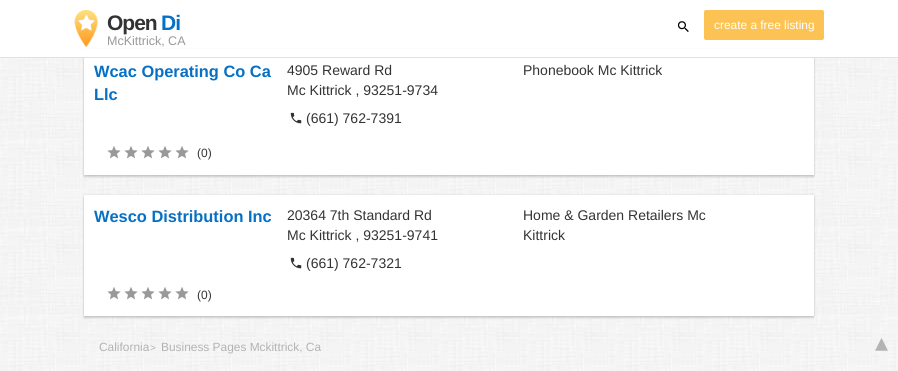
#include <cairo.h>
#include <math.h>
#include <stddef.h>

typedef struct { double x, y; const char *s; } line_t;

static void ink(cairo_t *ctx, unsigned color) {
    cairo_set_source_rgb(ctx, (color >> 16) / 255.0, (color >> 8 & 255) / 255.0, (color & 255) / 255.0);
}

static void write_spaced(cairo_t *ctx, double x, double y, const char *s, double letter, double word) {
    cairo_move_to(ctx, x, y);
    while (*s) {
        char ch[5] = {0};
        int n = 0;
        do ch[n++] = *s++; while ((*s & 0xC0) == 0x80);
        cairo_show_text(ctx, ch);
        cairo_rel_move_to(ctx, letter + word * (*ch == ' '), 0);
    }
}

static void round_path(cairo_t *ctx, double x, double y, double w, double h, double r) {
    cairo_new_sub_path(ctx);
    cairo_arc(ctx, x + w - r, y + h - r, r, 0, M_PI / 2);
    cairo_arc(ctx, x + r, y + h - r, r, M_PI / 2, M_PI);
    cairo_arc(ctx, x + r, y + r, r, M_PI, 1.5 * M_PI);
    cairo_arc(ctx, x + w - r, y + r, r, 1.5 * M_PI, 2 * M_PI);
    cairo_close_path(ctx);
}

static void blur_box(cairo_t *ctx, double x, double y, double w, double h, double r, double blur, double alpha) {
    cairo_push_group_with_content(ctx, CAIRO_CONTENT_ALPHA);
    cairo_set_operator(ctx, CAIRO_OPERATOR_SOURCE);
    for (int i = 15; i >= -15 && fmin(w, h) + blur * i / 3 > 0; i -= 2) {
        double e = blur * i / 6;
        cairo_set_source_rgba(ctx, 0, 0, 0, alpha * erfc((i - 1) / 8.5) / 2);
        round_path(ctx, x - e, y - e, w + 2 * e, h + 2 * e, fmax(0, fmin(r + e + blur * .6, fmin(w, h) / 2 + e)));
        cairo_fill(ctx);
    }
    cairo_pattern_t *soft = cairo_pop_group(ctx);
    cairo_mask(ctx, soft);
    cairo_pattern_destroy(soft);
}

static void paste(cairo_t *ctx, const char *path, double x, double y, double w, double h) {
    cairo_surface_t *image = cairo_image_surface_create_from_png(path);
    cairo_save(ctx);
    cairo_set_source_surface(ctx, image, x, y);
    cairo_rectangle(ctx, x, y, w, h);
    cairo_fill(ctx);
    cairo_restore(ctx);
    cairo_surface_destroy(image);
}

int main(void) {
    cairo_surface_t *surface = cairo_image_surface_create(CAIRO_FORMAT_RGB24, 898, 371);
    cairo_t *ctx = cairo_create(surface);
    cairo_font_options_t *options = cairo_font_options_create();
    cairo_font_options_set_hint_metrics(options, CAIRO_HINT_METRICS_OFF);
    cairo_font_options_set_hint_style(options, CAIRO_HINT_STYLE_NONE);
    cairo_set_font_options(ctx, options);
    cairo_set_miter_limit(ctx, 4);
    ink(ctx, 0xFFFFFF);
    cairo_paint(ctx);
    paste(ctx, "media/1.png", 0, 58, 898, 313);
    ink(ctx, 0x000000);
    blur_box(ctx, 84, 50, 730, 125, 0, 1, 0.12);
    blur_box(ctx, 84, 52, 730, 125, 0, 1, 0.16);
    ink(ctx, 0xFFFFFF);
    cairo_rectangle(ctx, 82, 49, 734, 8);
    cairo_fill(ctx);
    ink(ctx, 0xE0E0E0);
    cairo_rectangle(ctx, 0, 57, 898, 1);
    cairo_fill(ctx);
    paste(ctx, "media/2.png", 74, 10, 24, 37);
    cairo_select_font_face(ctx, "Liberation Sans", CAIRO_FONT_SLANT_NORMAL, CAIRO_FONT_WEIGHT_BOLD);
    cairo_set_font_size(ctx, 21);
    ink(ctx, 0x333333);
    write_spaced(ctx, 107, 30, "Open", -1, 0);
    ink(ctx, 0x0670C6);
    write_spaced(ctx, 161, 30, "Di", -1, 0);
    cairo_select_font_face(ctx, "Liberation Sans", CAIRO_FONT_SLANT_NORMAL, CAIRO_FONT_WEIGHT_NORMAL);
    cairo_set_font_size(ctx, 12.5);
    ink(ctx, 0x999999);
    cairo_move_to(ctx, 107, 45);
    cairo_show_text(ctx, "McKittrick, CA");
    paste(ctx, "media/3.png", 677, 21, 12, 11);
    ink(ctx, 0xFCC354);
    round_path(ctx, 704, 10, 120, 30, 2);
    cairo_fill(ctx);
    cairo_set_font_size(ctx, 11.9);
    ink(ctx, 0xFFFFFF);
    cairo_move_to(ctx, 714, 29);
    cairo_show_text(ctx, "create a free listing");
    cairo_rectangle(ctx, 84, 58, 730, 117);
    cairo_fill(ctx);
    cairo_select_font_face(ctx, "Liberation Sans", CAIRO_FONT_SLANT_NORMAL, CAIRO_FONT_WEIGHT_BOLD);
    cairo_set_font_size(ctx, 16.4);
    ink(ctx, 0x0670C6);
    cairo_move_to(ctx, 94, 77);
    cairo_show_text(ctx, "Wcac Operating Co Ca");
    cairo_move_to(ctx, 94, 100);
    cairo_show_text(ctx, "Llc");
    cairo_select_font_face(ctx, "Liberation Sans", CAIRO_FONT_SLANT_NORMAL, CAIRO_FONT_WEIGHT_NORMAL);
    cairo_set_font_size(ctx, 14);
    ink(ctx, 0x333333);
    cairo_move_to(ctx, 287, 75);
    cairo_show_text(ctx, "4905 Reward Rd");
    cairo_move_to(ctx, 287, 95);
    cairo_show_text(ctx, "Mc Kittrick , 93251-9734");
    paste(ctx, "media/4.png", 290, 112, 12, 12);
    cairo_move_to(ctx, 306, 123);
    cairo_show_text(ctx, "(661) 762-7391");
    cairo_move_to(ctx, 523, 75);
    cairo_show_text(ctx, "Phonebook Mc Kittrick");
    paste(ctx, "media/5.png", 107, 146, 14, 13);
    paste(ctx, "media/5.png", 124, 146, 14, 13);
    paste(ctx, "media/5.png", 141, 146, 14, 13);
    paste(ctx, "media/5.png", 158, 146, 14, 13);
    paste(ctx, "media/5.png", 175, 146, 14, 13);
    cairo_set_font_size(ctx, 12);
    cairo_move_to(ctx, 197, 157);
    cairo_show_text(ctx, "(0)");
    ink(ctx, 0x000000);
    blur_box(ctx, 84, 195, 730, 121, 0, 1, 0.12);
    blur_box(ctx, 84, 197, 730, 121, 0, 1, 0.16);
    ink(ctx, 0xFFFFFF);
    cairo_rectangle(ctx, 84, 195, 730, 121);
    cairo_fill(ctx);
    cairo_select_font_face(ctx, "Liberation Sans", CAIRO_FONT_SLANT_NORMAL, CAIRO_FONT_WEIGHT_BOLD);
    cairo_set_font_size(ctx, 16.4);
    ink(ctx, 0x0670C6);
    cairo_move_to(ctx, 94, 222);
    cairo_show_text(ctx, "Wesco Distribution Inc");
    cairo_select_font_face(ctx, "Liberation Sans", CAIRO_FONT_SLANT_NORMAL, CAIRO_FONT_WEIGHT_NORMAL);
    cairo_set_font_size(ctx, 14);
    ink(ctx, 0x333333);
    cairo_move_to(ctx, 287, 220);
    cairo_show_text(ctx, "20364 7th Standard Rd");
    cairo_move_to(ctx, 287, 240);
    cairo_show_text(ctx, "Mc Kittrick , 93251-9741");
    paste(ctx, "media/4.png", 290, 257, 12, 12);
    {
        static const line_t items[] = {
            {306, 268, "(661) 762-7321"},
            {523, 220, "Home & Garden Retailers Mc"},
            {523, 240, "Kittrick"},
        };
        for (size_t i = 0; i < sizeof items / sizeof *items; i++) {
            cairo_move_to(ctx, items[i].x, items[i].y);
            cairo_show_text(ctx, items[i].s);
        }
    }
    paste(ctx, "media/5.png", 107, 287, 14, 13);
    paste(ctx, "media/5.png", 124, 287, 14, 13);
    paste(ctx, "media/5.png", 141, 287, 14, 13);
    paste(ctx, "media/5.png", 158, 287, 14, 13);
    paste(ctx, "media/5.png", 175, 287, 14, 13);
    cairo_set_font_size(ctx, 12);
    cairo_move_to(ctx, 197, 299);
    cairo_show_text(ctx, "(0)");
    cairo_set_font_size(ctx, 11.9);
    ink(ctx, 0xB3B3B3);
    cairo_move_to(ctx, 99, 351);
    cairo_show_text(ctx, "California");
    cairo_set_font_size(ctx, 10);
    cairo_move_to(ctx, 150, 351);
    cairo_show_text(ctx, ">");
    cairo_set_font_size(ctx, 11.9);
    cairo_move_to(ctx, 161, 351);
    cairo_show_text(ctx, "Business Pages Mckittrick, Ca");
    cairo_select_font_face(ctx, "DejaVu Sans", CAIRO_FONT_SLANT_NORMAL, CAIRO_FONT_WEIGHT_NORMAL);
    cairo_set_font_size(ctx, 26);
    cairo_move_to(ctx, 875, 351);
    cairo_show_text(ctx, "▴");
    cairo_surface_write_to_png(surface, "image.png");
    cairo_font_options_destroy(options);
    cairo_destroy(ctx);
    cairo_surface_destroy(surface);
    return 0;
}
